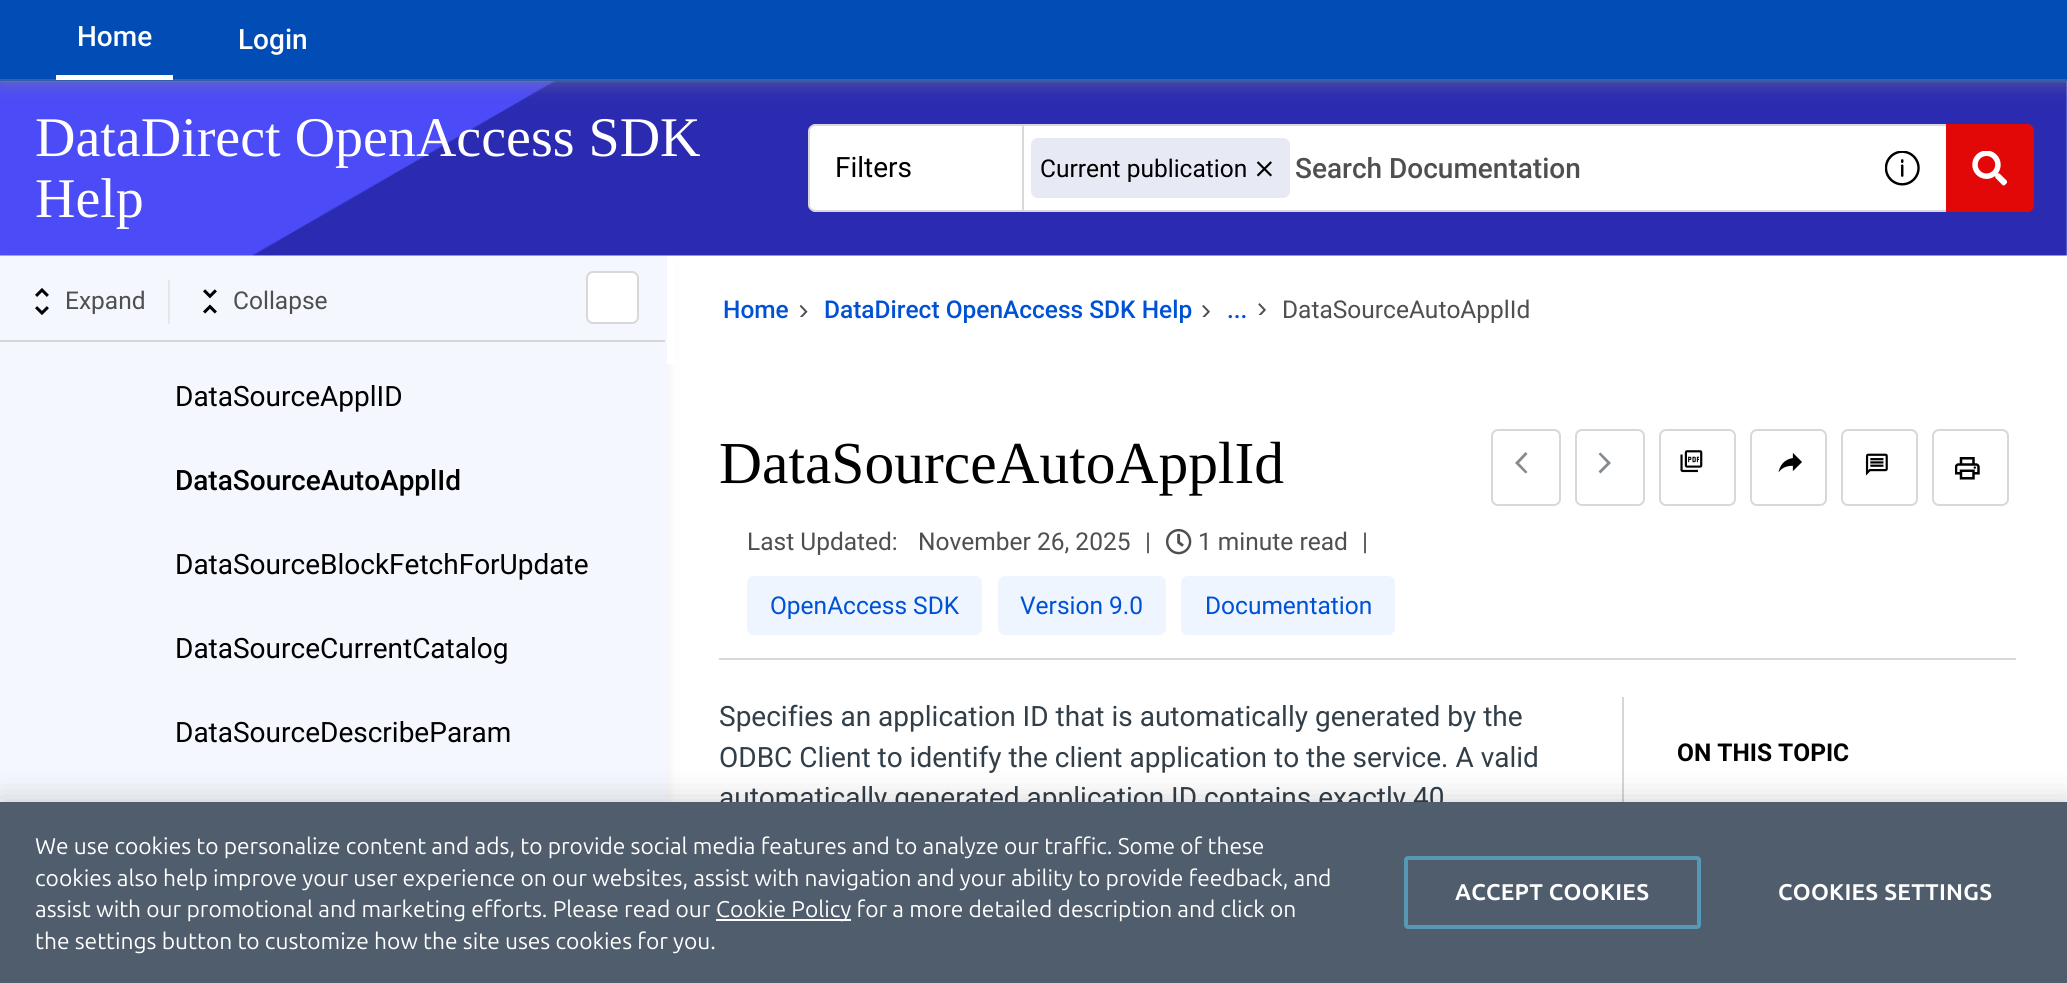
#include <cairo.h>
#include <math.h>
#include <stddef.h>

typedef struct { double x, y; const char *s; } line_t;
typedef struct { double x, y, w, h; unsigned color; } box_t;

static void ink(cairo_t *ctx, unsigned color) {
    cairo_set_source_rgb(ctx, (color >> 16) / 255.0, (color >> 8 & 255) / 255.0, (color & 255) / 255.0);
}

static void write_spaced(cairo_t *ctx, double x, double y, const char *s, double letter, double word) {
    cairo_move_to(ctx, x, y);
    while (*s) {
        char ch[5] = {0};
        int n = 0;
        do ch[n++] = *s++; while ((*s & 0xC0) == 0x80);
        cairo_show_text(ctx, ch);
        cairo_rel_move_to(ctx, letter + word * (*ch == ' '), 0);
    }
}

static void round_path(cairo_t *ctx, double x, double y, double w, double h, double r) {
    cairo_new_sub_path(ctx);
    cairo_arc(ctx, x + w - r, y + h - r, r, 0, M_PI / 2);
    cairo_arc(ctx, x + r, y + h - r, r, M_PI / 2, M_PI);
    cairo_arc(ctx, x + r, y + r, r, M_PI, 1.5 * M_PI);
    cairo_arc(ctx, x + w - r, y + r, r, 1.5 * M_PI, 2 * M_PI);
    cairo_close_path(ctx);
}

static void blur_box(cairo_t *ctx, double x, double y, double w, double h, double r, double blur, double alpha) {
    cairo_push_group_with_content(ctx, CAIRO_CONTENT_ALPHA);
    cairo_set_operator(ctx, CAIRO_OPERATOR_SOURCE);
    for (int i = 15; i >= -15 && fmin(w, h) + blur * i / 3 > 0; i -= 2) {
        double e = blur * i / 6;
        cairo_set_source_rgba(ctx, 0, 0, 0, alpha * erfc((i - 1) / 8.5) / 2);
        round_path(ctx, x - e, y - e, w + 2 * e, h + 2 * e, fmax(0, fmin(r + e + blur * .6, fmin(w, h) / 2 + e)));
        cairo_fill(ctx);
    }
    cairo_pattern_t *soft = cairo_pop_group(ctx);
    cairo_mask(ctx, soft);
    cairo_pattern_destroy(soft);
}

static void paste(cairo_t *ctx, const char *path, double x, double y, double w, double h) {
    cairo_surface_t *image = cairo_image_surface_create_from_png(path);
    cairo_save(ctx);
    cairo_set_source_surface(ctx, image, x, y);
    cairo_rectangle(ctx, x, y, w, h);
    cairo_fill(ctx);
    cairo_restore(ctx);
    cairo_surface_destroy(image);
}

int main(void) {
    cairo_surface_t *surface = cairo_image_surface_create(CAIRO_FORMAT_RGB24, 2067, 983);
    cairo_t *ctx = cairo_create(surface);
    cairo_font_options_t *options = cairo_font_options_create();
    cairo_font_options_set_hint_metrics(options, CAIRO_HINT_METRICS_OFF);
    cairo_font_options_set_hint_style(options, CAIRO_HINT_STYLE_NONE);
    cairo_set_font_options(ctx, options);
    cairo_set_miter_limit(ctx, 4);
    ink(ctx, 0xFFFFFF);
    cairo_paint(ctx);
    ink(ctx, 0x024DB5);
    cairo_rectangle(ctx, 0, 0, 2067, 81);
    cairo_fill(ctx);
    ink(ctx, 0xB5B7B3);
    blur_box(ctx, 0, 259, 667, 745, 0, 7, 0.25);
    paste(ctx, "media/1.png", 0, 81, 2067, 175);
    cairo_save(ctx);
    cairo_set_fill_rule(ctx, CAIRO_FILL_RULE_EVEN_ODD);
    cairo_new_path(ctx);
    cairo_move_to(ctx, 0, 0);
    cairo_line_to(ctx, 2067, 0);
    cairo_line_to(ctx, 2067, 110);
    cairo_line_to(ctx, 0, 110);
    cairo_close_path(ctx);
    cairo_move_to(ctx, 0, 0);
    cairo_line_to(ctx, 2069, 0);
    cairo_line_to(ctx, 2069, 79);
    cairo_line_to(ctx, 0, 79);
    cairo_close_path(ctx);
    cairo_clip(ctx);
    ink(ctx, 0x838486);
    blur_box(ctx, 0, 4, 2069, 78, 0, 9, 0.62);
    cairo_restore(ctx);
    ink(ctx, 0xFFFFFF);
    cairo_rectangle(ctx, 56, 75, 117, 5);
    cairo_fill(ctx);
    cairo_select_font_face(ctx, "Roboto Medium", CAIRO_FONT_SLANT_NORMAL, CAIRO_FONT_WEIGHT_NORMAL);
    cairo_set_font_size(ctx, 28);
    cairo_move_to(ctx, 77, 46);
    cairo_show_text(ctx, "Home");
    cairo_move_to(ctx, 238, 49);
    cairo_show_text(ctx, "Login");
    cairo_select_font_face(ctx, "Liberation Serif", CAIRO_FONT_SLANT_NORMAL, CAIRO_FONT_WEIGHT_NORMAL);
    cairo_set_font_size(ctx, 56);
    cairo_move_to(ctx, 35, 156);
    cairo_show_text(ctx, "DataDirect OpenAccess SDK");
    cairo_move_to(ctx, 35, 217);
    cairo_show_text(ctx, "Help");
    cairo_new_path(ctx);
    cairo_move_to(ctx, 816, 124);
    cairo_line_to(ctx, 1022, 124);
    cairo_line_to(ctx, 1022, 212);
    cairo_line_to(ctx, 816, 212);
    cairo_curve_to(ctx, 812, 212, 809, 209, 809, 205);
    cairo_line_to(ctx, 809, 131);
    cairo_curve_to(ctx, 809, 127, 812, 124, 816, 124);
    cairo_close_path(ctx);
    cairo_fill(ctx);
    ink(ctx, 0xD8D8D8);
    cairo_set_fill_rule(ctx, CAIRO_FILL_RULE_EVEN_ODD);
    cairo_new_path(ctx);
    cairo_move_to(ctx, 816, 124);
    cairo_line_to(ctx, 1022, 124);
    cairo_line_to(ctx, 1022, 212);
    cairo_line_to(ctx, 816, 212);
    cairo_curve_to(ctx, 812, 212, 808, 209, 808, 205);
    cairo_line_to(ctx, 808, 131);
    cairo_curve_to(ctx, 808, 127, 812, 124, 816, 124);
    cairo_close_path(ctx);
    cairo_move_to(ctx, 816, 126);
    cairo_line_to(ctx, 1022, 126);
    cairo_line_to(ctx, 1022, 210);
    cairo_line_to(ctx, 816, 210);
    cairo_curve_to(ctx, 813, 210, 810, 208, 810, 205);
    cairo_line_to(ctx, 810, 131);
    cairo_curve_to(ctx, 810, 128, 813, 126, 816, 126);
    cairo_close_path(ctx);
    cairo_fill(ctx);
    cairo_select_font_face(ctx, "Roboto", CAIRO_FONT_SLANT_NORMAL, CAIRO_FONT_WEIGHT_NORMAL);
    cairo_set_font_size(ctx, 28);
    ink(ctx, 0x000000);
    cairo_move_to(ctx, 835, 177);
    cairo_show_text(ctx, "Filters");
    {
        static const box_t items[] = {
            {1024, 126, 922, 84, 0xFFFFFF},
            {1022, 124, 924, 2, 0xD8D8D8},
            {1022, 210, 924, 2, 0xD8D8D8},
        };
        for (size_t i = 0; i < sizeof items / sizeof *items; i++) {
            ink(ctx, items[i].color);
            cairo_rectangle(ctx, items[i].x, items[i].y, items[i].w, items[i].h);
            cairo_fill(ctx);
        }
    }
    paste(ctx, "media/2.png", 1885, 151, 35, 35);
    ink(ctx, 0xE30808);
    cairo_new_path(ctx);
    cairo_move_to(ctx, 1946, 124);
    cairo_line_to(ctx, 2027, 124);
    cairo_curve_to(ctx, 2031, 124, 2034, 127, 2034, 131);
    cairo_line_to(ctx, 2034, 205);
    cairo_curve_to(ctx, 2034, 209, 2031, 212, 2027, 212);
    cairo_line_to(ctx, 1946, 212);
    cairo_close_path(ctx);
    cairo_fill(ctx);
    paste(ctx, "media/3.png", 1972, 151, 35, 35);
    ink(ctx, 0xE7EAF4);
    round_path(ctx, 1031, 138, 259, 60, 7);
    cairo_fill(ctx);
    cairo_set_font_size(ctx, 24.5);
    ink(ctx, 0x000000);
    cairo_move_to(ctx, 1040, 177);
    cairo_show_text(ctx, "Current publication");
    paste(ctx, "media/4.png", 1256, 161, 16, 16);
    ink(ctx, 0xD8D8D8);
    cairo_rectangle(ctx, 1022, 124, 2, 88);
    cairo_fill(ctx);
    cairo_select_font_face(ctx, "Roboto Medium", CAIRO_FONT_SLANT_NORMAL, CAIRO_FONT_WEIGHT_NORMAL);
    cairo_set_font_size(ctx, 28);
    ink(ctx, 0x4F4F4F);
    cairo_move_to(ctx, 1295, 178);
    cairo_show_text(ctx, "Search Documentation");
    ink(ctx, 0xF4F7FD);
    cairo_rectangle(ctx, 0, 256, 667, 546);
    cairo_fill(ctx);
    ink(ctx, 0xD6D6D6);
    cairo_rectangle(ctx, 0, 340, 665, 2);
    cairo_fill(ctx);
    paste(ctx, "media/5.png", 35, 288, 14, 27);
    cairo_select_font_face(ctx, "Roboto", CAIRO_FONT_SLANT_NORMAL, CAIRO_FONT_WEIGHT_NORMAL);
    cairo_set_font_size(ctx, 24.5);
    ink(ctx, 0x4F4F4F);
    cairo_move_to(ctx, 65, 309);
    cairo_show_text(ctx, "Expand");
    ink(ctx, 0xE5E7EA);
    cairo_rectangle(ctx, 168, 280, 2, 44);
    cairo_fill(ctx);
    paste(ctx, "media/6.png", 203, 289, 14, 25);
    ink(ctx, 0x4F4F4F);
    cairo_move_to(ctx, 233, 309);
    cairo_show_text(ctx, "Collapse");
    ink(ctx, 0xFFFFFF);
    round_path(ctx, 587, 272, 51, 51, 6);
    cairo_fill_preserve(ctx);
    ink(ctx, 0xD8D8D8);
    cairo_stroke(ctx);
    cairo_set_font_size(ctx, 28);
    ink(ctx, 0x000000);
    cairo_move_to(ctx, 175, 406);
    cairo_show_text(ctx, "DataSourceApplID");
    cairo_select_font_face(ctx, "Roboto Medium", CAIRO_FONT_SLANT_NORMAL, CAIRO_FONT_WEIGHT_NORMAL);
    cairo_move_to(ctx, 175, 490);
    cairo_show_text(ctx, "DataSourceAutoApplId");
    cairo_select_font_face(ctx, "Roboto", CAIRO_FONT_SLANT_NORMAL, CAIRO_FONT_WEIGHT_NORMAL);
    {
        static const line_t items[] = {
            {175, 574, "DataSourceBlockFetchForUpdate"},
            {175, 658, "DataSourceCurrentCatalog"},
            {175, 742, "DataSourceDescribeParam"},
        };
        for (size_t i = 0; i < sizeof items / sizeof *items; i++) {
            cairo_move_to(ctx, items[i].x, items[i].y);
            cairo_show_text(ctx, items[i].s);
        }
    }
    ink(ctx, 0xFFFFFF);
    cairo_rectangle(ctx, 667, 256, 8, 108);
    cairo_fill(ctx);
    cairo_select_font_face(ctx, "Roboto Medium", CAIRO_FONT_SLANT_NORMAL, CAIRO_FONT_WEIGHT_NORMAL);
    cairo_set_font_size(ctx, 24.5);
    ink(ctx, 0x0051D3);
    cairo_move_to(ctx, 723, 318);
    cairo_show_text(ctx, "Home");
    paste(ctx, "media/7.png", 799, 305, 9, 12);
    cairo_move_to(ctx, 824, 318);
    cairo_show_text(ctx, "DataDirect OpenAccess SDK Help");
    paste(ctx, "media/8.png", 1202, 305, 8, 12);
    paste(ctx, "media/9.png", 1258, 303, 8, 12);
    cairo_move_to(ctx, 1227, 318);
    cairo_show_text(ctx, "...");
    cairo_select_font_face(ctx, "Roboto", CAIRO_FONT_SLANT_NORMAL, CAIRO_FONT_WEIGHT_NORMAL);
    ink(ctx, 0x4F4F4F);
    cairo_move_to(ctx, 1282, 318);
    cairo_show_text(ctx, "DataSourceAutoApplId");
    ink(ctx, 0xD8D8D8);
    cairo_rectangle(ctx, 719, 658, 1297, 2);
    cairo_fill(ctx);
    cairo_select_font_face(ctx, "Liberation Serif", CAIRO_FONT_SLANT_NORMAL, CAIRO_FONT_WEIGHT_NORMAL);
    cairo_set_font_size(ctx, 59.5);
    ink(ctx, 0x000000);
    cairo_move_to(ctx, 719, 483);
    cairo_show_text(ctx, "DataSourceAutoApplId");
    round_path(ctx, 1492, 430, 68, 75, 6);
    ink(ctx, 0xD8D8D8);
    cairo_stroke(ctx);
    ink(ctx, 0x838A91);
    cairo_set_fill_rule(ctx, CAIRO_FILL_RULE_WINDING);
    cairo_new_path(ctx);
    cairo_move_to(ctx, 1527.5, 454);
    cairo_line_to(ctx, 1525.5, 452);
    cairo_line_to(ctx, 1515, 463);
    cairo_line_to(ctx, 1525.5, 473.5);
    cairo_line_to(ctx, 1527.5, 472);
    cairo_line_to(ctx, 1519, 463);
    cairo_close_path(ctx);
    cairo_fill(ctx);
    round_path(ctx, 1576, 430, 68, 75, 6);
    ink(ctx, 0xD8D8D8);
    cairo_stroke(ctx);
    ink(ctx, 0x838A91);
    cairo_new_path(ctx);
    cairo_move_to(ctx, 1598.5, 471.5);
    cairo_line_to(ctx, 1600.5, 473.5);
    cairo_line_to(ctx, 1611, 463);
    cairo_line_to(ctx, 1600.5, 452.5);
    cairo_line_to(ctx, 1598.5, 454);
    cairo_line_to(ctx, 1607, 463);
    cairo_close_path(ctx);
    cairo_fill(ctx);
    round_path(ctx, 1660, 430, 75, 75, 6);
    ink(ctx, 0xD8D8D8);
    cairo_stroke(ctx);
    paste(ctx, "media/10.png", 1680, 450, 23, 23);
    round_path(ctx, 1751, 430, 75, 75, 6);
    cairo_stroke(ctx);
    paste(ctx, "media/11.png", 1778, 453, 24, 20);
    round_path(ctx, 1842, 430, 75, 75, 6);
    cairo_stroke(ctx);
    paste(ctx, "media/12.png", 1865, 453, 23, 23);
    round_path(ctx, 1933, 430, 75, 75, 6);
    cairo_stroke(ctx);
    paste(ctx, "media/13.png", 1955, 457, 25, 23);
    cairo_select_font_face(ctx, "Roboto", CAIRO_FONT_SLANT_NORMAL, CAIRO_FONT_WEIGHT_NORMAL);
    cairo_set_font_size(ctx, 24.5);
    ink(ctx, 0x4F4F4F);
    {
        static const line_t items[] = {
            {747, 550, "Last Updated:"},
            {918, 550, "November 26, 2025"},
            {1145, 550, "|"},
        };
        for (size_t i = 0; i < sizeof items / sizeof *items; i++) {
            cairo_move_to(ctx, items[i].x, items[i].y);
            cairo_show_text(ctx, items[i].s);
        }
    }
    paste(ctx, "media/14.png", 1166, 529, 26, 26);
    cairo_move_to(ctx, 1198, 550);
    cairo_show_text(ctx, "1 minute read");
    cairo_move_to(ctx, 1362, 550);
    cairo_show_text(ctx, "|");
    ink(ctx, 0xEEF5FF);
    round_path(ctx, 747, 576, 235, 59, 7);
    cairo_fill(ctx);
    ink(ctx, 0x0051D3);
    cairo_move_to(ctx, 770, 614);
    cairo_show_text(ctx, "OpenAccess SDK");
    ink(ctx, 0xEEF5FF);
    round_path(ctx, 998, 576, 168, 59, 7);
    cairo_fill(ctx);
    ink(ctx, 0x0051D3);
    cairo_move_to(ctx, 1020, 614);
    cairo_show_text(ctx, "Version 9.0");
    ink(ctx, 0xEEF5FF);
    round_path(ctx, 1181, 576, 214, 59, 7);
    cairo_fill(ctx);
    ink(ctx, 0x0051D3);
    cairo_move_to(ctx, 1205, 614);
    cairo_show_text(ctx, "Documentation");
    cairo_set_font_size(ctx, 28);
    ink(ctx, 0x323E48);
    {
        static const line_t items[] = {
            {719, 726, "Specifies an application ID that is automatically generated by the"},
            {719, 767, "ODBC Client to identify the client application to the service. A valid"},
            {719, 807, "automatically generated application ID contains exactly 40"},
        };
        for (size_t i = 0; i < sizeof items / sizeof *items; i++) {
            cairo_move_to(ctx, items[i].x, items[i].y);
            cairo_show_text(ctx, items[i].s);
        }
    }
    ink(ctx, 0xD6D6D6);
    cairo_rectangle(ctx, 1622, 697, 2, 105);
    cairo_fill(ctx);
    cairo_select_font_face(ctx, "Roboto", CAIRO_FONT_SLANT_NORMAL, CAIRO_FONT_WEIGHT_BOLD);
    cairo_set_font_size(ctx, 24.5);
    ink(ctx, 0x000000);
    cairo_move_to(ctx, 1677, 761);
    cairo_show_text(ctx, "ON THIS TOPIC");
    ink(ctx, 0x000000);
    blur_box(ctx, 0, 802, 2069, 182, 0, 16, 0.2);
    ink(ctx, 0x4F5D6C);
    cairo_rectangle(ctx, 0, 802, 2067, 181);
    cairo_fill(ctx);
    cairo_select_font_face(ctx, "Ubuntu", CAIRO_FONT_SLANT_NORMAL, CAIRO_FONT_WEIGHT_NORMAL);
    cairo_set_font_size(ctx, 22.75);
    ink(ctx, 0xFFFFFF);
    {
        static const line_t items[] = {
            {35, 854, "We use cookies to personalize content and ads, to provide social media features and to analyze our traffic. Some of these"},
            {35, 886, "cookies also help improve your user experience on our websites, assist with navigation and your ability to provide feedback, and"},
            {35, 917, "assist with our promotional and marketing efforts. Please read our"},
        };
        for (size_t i = 0; i < sizeof items / sizeof *items; i++) {
            cairo_move_to(ctx, items[i].x, items[i].y);
            cairo_show_text(ctx, items[i].s);
        }
    }
    cairo_rectangle(ctx, 716, 919, 135, 2);
    cairo_fill(ctx);
    cairo_move_to(ctx, 716, 917);
    cairo_show_text(ctx, "Cookie Policy for a more detailed description and click on");
    cairo_move_to(ctx, 35, 949);
    cairo_show_text(ctx, "the settings button to customize how the site uses cookies for you.");
    round_path(ctx, 1406, 858, 293, 69, 2);
    ink(ctx, 0x5699B6);
    cairo_set_line_width(ctx, 4);
    cairo_stroke(ctx);
    cairo_select_font_face(ctx, "Ubuntu", CAIRO_FONT_SLANT_NORMAL, CAIRO_FONT_WEIGHT_BOLD);
    ink(ctx, 0xFFFFFF);
    write_spaced(ctx, 1455, 900, "ACCEPT COOKIES", 0.25, 0);
    write_spaced(ctx, 1778, 900, "COOKIES SETTINGS", 0.25, 0);
    cairo_surface_write_to_png(surface, "image.png");
    cairo_font_options_destroy(options);
    cairo_destroy(ctx);
    cairo_surface_destroy(surface);
    return 0;
}
